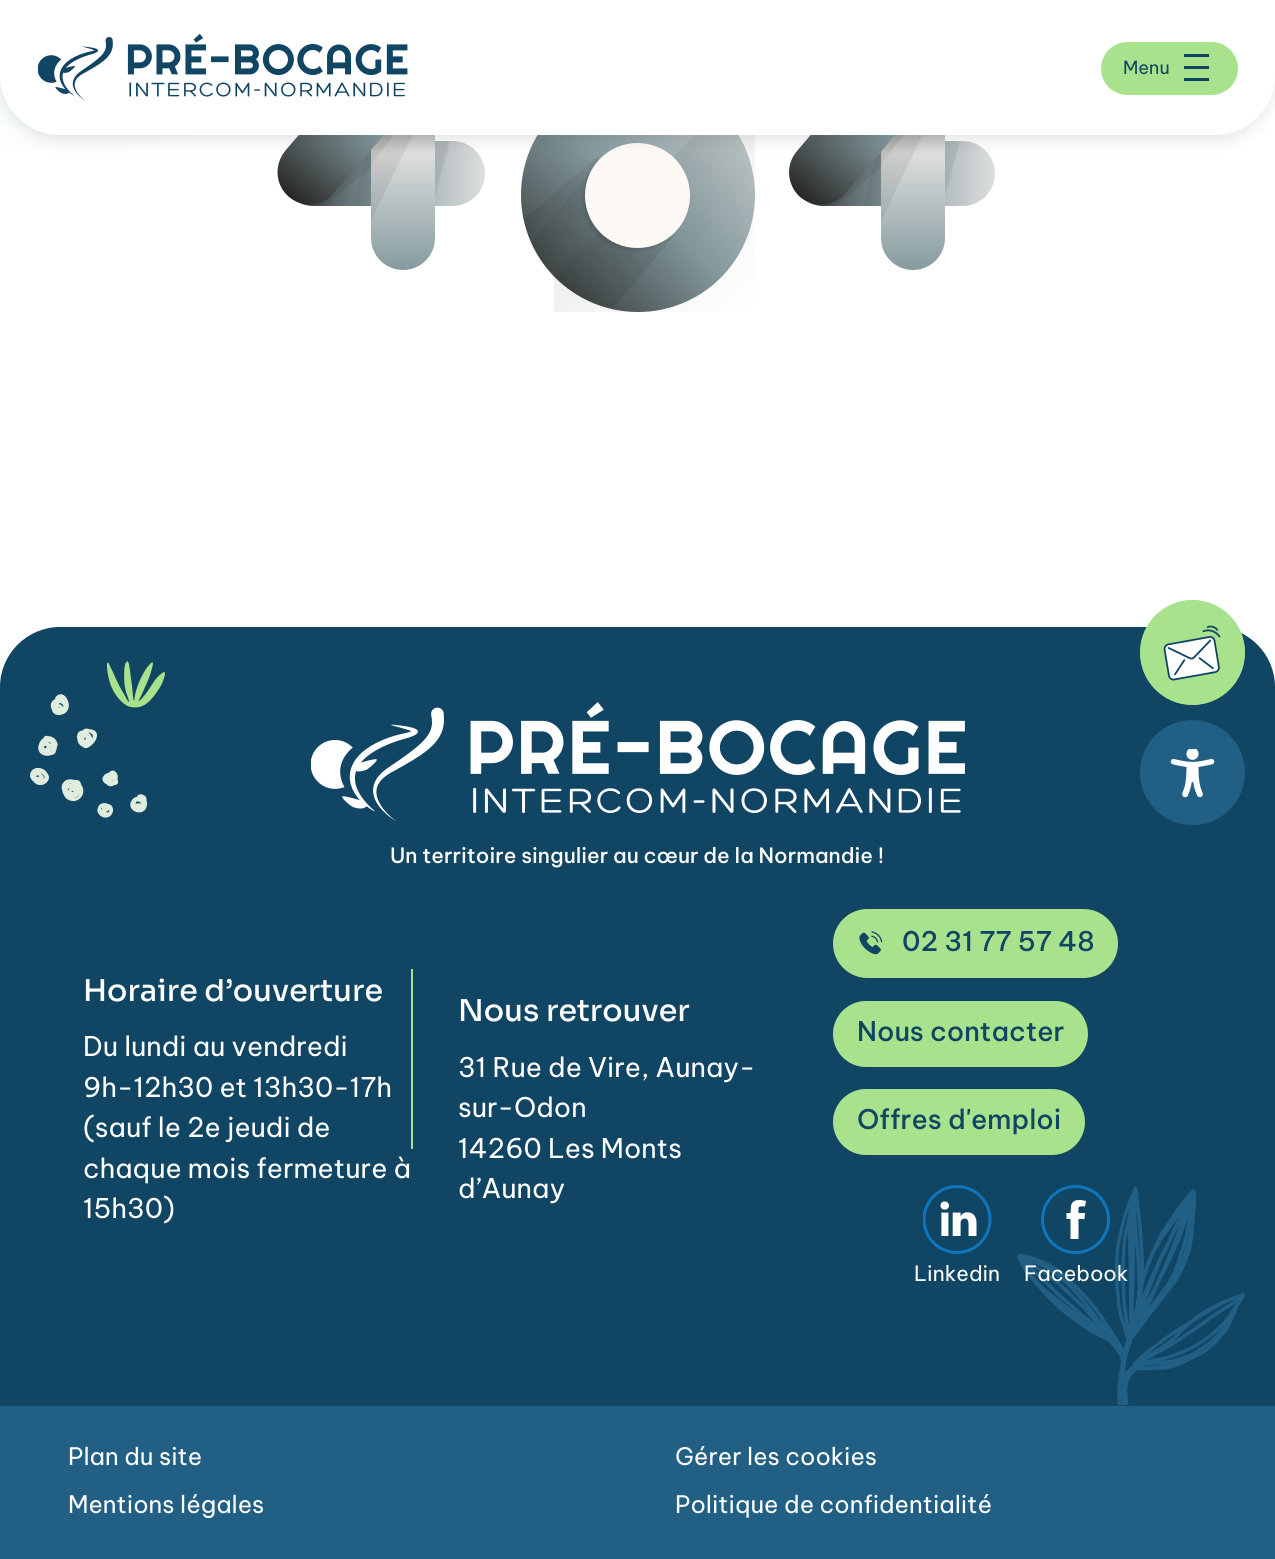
#include <cairo.h>
#include <math.h>
#include <stddef.h>

typedef struct { double x, y; const char *s; } line_t;
typedef struct { double x, y, w, h; unsigned color; } box_t;

static void ink(cairo_t *ctx, unsigned color) {
    cairo_set_source_rgb(ctx, (color >> 16) / 255.0, (color >> 8 & 255) / 255.0, (color & 255) / 255.0);
}

static void round_path(cairo_t *ctx, double x, double y, double w, double h, double r) {
    cairo_new_sub_path(ctx);
    cairo_arc(ctx, x + w - r, y + h - r, r, 0, M_PI / 2);
    cairo_arc(ctx, x + r, y + h - r, r, M_PI / 2, M_PI);
    cairo_arc(ctx, x + r, y + r, r, M_PI, 1.5 * M_PI);
    cairo_arc(ctx, x + w - r, y + r, r, 1.5 * M_PI, 2 * M_PI);
    cairo_close_path(ctx);
}

static void blur_box(cairo_t *ctx, double x, double y, double w, double h, double r, double blur, double alpha) {
    cairo_push_group_with_content(ctx, CAIRO_CONTENT_ALPHA);
    cairo_set_operator(ctx, CAIRO_OPERATOR_SOURCE);
    for (int i = 15; i >= -15 && fmin(w, h) + blur * i / 3 > 0; i -= 2) {
        double e = blur * i / 6;
        cairo_set_source_rgba(ctx, 0, 0, 0, alpha * erfc((i - 1) / 8.5) / 2);
        round_path(ctx, x - e, y - e, w + 2 * e, h + 2 * e, fmax(0, fmin(r + e + blur * .6, fmin(w, h) / 2 + e)));
        cairo_fill(ctx);
    }
    cairo_pattern_t *soft = cairo_pop_group(ctx);
    cairo_mask(ctx, soft);
    cairo_pattern_destroy(soft);
}

static void paste(cairo_t *ctx, const char *path, double x, double y, double w, double h) {
    cairo_surface_t *image = cairo_image_surface_create_from_png(path);
    cairo_save(ctx);
    cairo_set_source_surface(ctx, image, x, y);
    cairo_rectangle(ctx, x, y, w, h);
    cairo_fill(ctx);
    cairo_restore(ctx);
    cairo_surface_destroy(image);
}

int main(void) {
    cairo_surface_t *surface = cairo_image_surface_create(CAIRO_FORMAT_RGB24, 1275, 1559);
    cairo_t *ctx = cairo_create(surface);
    cairo_font_options_t *options = cairo_font_options_create();
    cairo_font_options_set_hint_metrics(options, CAIRO_HINT_METRICS_OFF);
    cairo_font_options_set_hint_style(options, CAIRO_HINT_STYLE_NONE);
    cairo_set_font_options(ctx, options);
    cairo_set_miter_limit(ctx, 4);
    cairo_pattern_t *gradient;
    ink(ctx, 0xFFFFFF);
    cairo_paint(ctx);
    gradient = cairo_pattern_create_linear(584, -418, 691, 346);
    cairo_pattern_add_color_stop_rgba(gradient, 0, 0.808, 0.941, 0.922, 1);
    cairo_pattern_add_color_stop_rgba(gradient, 0.66, 1, 1, 1, 1);
    cairo_set_source(ctx, gradient);
    cairo_pattern_destroy(gradient);
    cairo_rectangle(ctx, 0, 75, 544, 77);
    cairo_fill(ctx);
    gradient = cairo_pattern_create_linear(281, 173, 485, 173);
    cairo_pattern_add_color_stop_rgba(gradient, 0, 0.153, 0.153, 0.145, 1);
    cairo_pattern_add_color_stop_rgba(gradient, 0.5, 0.522, 0.608, 0.627, 1);
    cairo_pattern_add_color_stop_rgba(gradient, 1, 0.871, 0.871, 0.867, 1);
    cairo_set_source(ctx, gradient);
    cairo_pattern_destroy(gradient);
    round_path(ctx, 281, 141, 204, 65, 32.5);
    cairo_fill(ctx);
    gradient = cairo_pattern_create_linear(279, 146, 486, 201);
    cairo_pattern_add_color_stop_rgba(gradient, 0, 0, 0, 0, 0);
    cairo_pattern_add_color_stop_rgba(gradient, 0.4, 0, 0, 0, 0);
    cairo_pattern_add_color_stop_rgba(gradient, 0.41, 0, 0, 0, 0.06);
    cairo_pattern_add_color_stop_rgba(gradient, 0.76, 0, 0, 0, 0.07);
    cairo_pattern_add_color_stop_rgba(gradient, 0.77, 0, 0, 0, 0);
    cairo_pattern_add_color_stop_rgba(gradient, 1, 0, 0, 0, 0);
    cairo_set_source(ctx, gradient);
    cairo_pattern_destroy(gradient);
    cairo_rectangle(ctx, 353, 141, 97, 65);
    cairo_fill(ctx);
    gradient = cairo_pattern_create_linear(324, 104, 441, 242);
    cairo_pattern_add_color_stop_rgba(gradient, 0, 0, 0, 0, 0.1);
    cairo_pattern_add_color_stop_rgba(gradient, 0.43, 0, 0, 0, 0.07);
    cairo_pattern_add_color_stop_rgba(gradient, 0.44, 0, 0, 0, 0);
    cairo_pattern_add_color_stop_rgba(gradient, 1, 0, 0, 0, 0);
    cairo_set_source(ctx, gradient);
    cairo_pattern_destroy(gradient);
    round_path(ctx, 281, 141, 204, 65, 32.5);
    cairo_fill(ctx);
    gradient = cairo_pattern_create_linear(403, 270, 403, 36);
    cairo_pattern_add_color_stop_rgba(gradient, 0, 0.522, 0.608, 0.627, 1);
    cairo_pattern_add_color_stop_rgba(gradient, 0.5, 0.871, 0.871, 0.867, 1);
    cairo_pattern_add_color_stop_rgba(gradient, 1, 0.153, 0.153, 0.145, 1);
    cairo_set_source(ctx, gradient);
    cairo_pattern_destroy(gradient);
    round_path(ctx, 371, 36, 64, 234, 32);
    cairo_fill(ctx);
    gradient = cairo_pattern_create_linear(331, 118, 475, 188);
    cairo_pattern_add_color_stop_rgba(gradient, 0, 0, 0, 0, 0.1);
    cairo_pattern_add_color_stop_rgba(gradient, 0.5, 0, 0, 0, 0.07);
    cairo_pattern_add_color_stop_rgba(gradient, 0.51, 0, 0, 0, 0);
    cairo_pattern_add_color_stop_rgba(gradient, 1, 0, 0, 0, 0);
    cairo_set_source(ctx, gradient);
    cairo_pattern_destroy(gradient);
    cairo_rectangle(ctx, 371, 135, 42, 85);
    cairo_fill(ctx);
    gradient = cairo_pattern_create_linear(326, 93, 480, 213);
    cairo_pattern_add_color_stop_rgba(gradient, 0, 0, 0, 0, 0.1);
    cairo_pattern_add_color_stop_rgba(gradient, 0.4, 0, 0, 0, 0.07);
    cairo_pattern_add_color_stop_rgba(gradient, 0.41, 0, 0, 0, 0);
    cairo_pattern_add_color_stop_rgba(gradient, 1, 0, 0, 0, 0);
    cairo_set_source(ctx, gradient);
    cairo_pattern_destroy(gradient);
    cairo_rectangle(ctx, 371, 135, 23, 29);
    cairo_fill(ctx);
    gradient = cairo_pattern_create_linear(289, 197, 422, 41);
    cairo_pattern_add_color_stop_rgba(gradient, 0, 0.153, 0.153, 0.145, 1);
    cairo_pattern_add_color_stop_rgba(gradient, 0.5, 0.522, 0.608, 0.627, 1);
    cairo_pattern_add_color_stop_rgba(gradient, 1, 0.871, 0.871, 0.867, 1);
    cairo_set_source(ctx, gradient);
    cairo_pattern_destroy(gradient);
    cairo_new_path(ctx);
    cairo_move_to(ctx, 285, 151);
    cairo_line_to(ctx, 377, 44);
    cairo_curve_to(ctx, 388, 31, 409, 29, 422, 41);
    cairo_curve_to(ctx, 436, 52, 438, 72, 426, 86);
    cairo_line_to(ctx, 334, 193);
    cairo_curve_to(ctx, 323, 207, 302, 208, 289, 197);
    cairo_curve_to(ctx, 275, 185, 274, 165, 285, 151);
    cairo_close_path(ctx);
    cairo_fill(ctx);
    gradient = cairo_pattern_create_linear(521, 312, 755, 78);
    cairo_pattern_add_color_stop_rgba(gradient, 0, 0.153, 0.153, 0.145, 1);
    cairo_pattern_add_color_stop_rgba(gradient, 0.5, 0.522, 0.608, 0.627, 1);
    cairo_pattern_add_color_stop_rgba(gradient, 1, 0.871, 0.871, 0.867, 1);
    cairo_set_source(ctx, gradient);
    cairo_pattern_destroy(gradient);
    cairo_arc(ctx, 638, 195, 117, 0, 2 * M_PI);
    cairo_fill(ctx);
    gradient = cairo_pattern_create_linear(755, 312, 521, 78);
    cairo_pattern_add_color_stop_rgba(gradient, 0, 0, 0, 0, 0);
    cairo_pattern_add_color_stop_rgba(gradient, 0.5, 0, 0, 0, 0.06);
    cairo_pattern_add_color_stop_rgba(gradient, 0.51, 0, 0, 0, 0);
    cairo_pattern_add_color_stop_rgba(gradient, 1, 0, 0, 0, 0);
    cairo_set_source(ctx, gradient);
    cairo_pattern_destroy(gradient);
    cairo_rectangle(ctx, 554, 135, 201, 177);
    cairo_fill(ctx);
    gradient = cairo_pattern_create_linear(532, 197, 644, 291);
    cairo_pattern_add_color_stop_rgba(gradient, 0, 0, 0, 0, 0);
    cairo_pattern_add_color_stop_rgba(gradient, 0.19, 0, 0, 0, 0);
    cairo_pattern_add_color_stop_rgba(gradient, 0.2, 0, 0, 0, 0.05);
    cairo_pattern_add_color_stop_rgba(gradient, 0.91, 0, 0, 0, 0.07);
    cairo_pattern_add_color_stop_rgba(gradient, 0.92, 0, 0, 0, 0);
    cairo_pattern_add_color_stop_rgba(gradient, 1, 0, 0, 0, 0);
    cairo_set_source(ctx, gradient);
    cairo_pattern_destroy(gradient);
    cairo_new_path(ctx);
    cairo_move_to(ctx, 588, 148);
    cairo_line_to(ctx, 683, 244);
    cairo_line_to(ctx, 617, 310);
    cairo_curve_to(ctx, 569, 301, 531, 263, 523, 214);
    cairo_close_path(ctx);
    cairo_fill(ctx);
    gradient = cairo_pattern_create_linear(541, 188, 635, 300);
    cairo_pattern_add_color_stop_rgba(gradient, 0, 0, 0, 0, 0);
    cairo_pattern_add_color_stop_rgba(gradient, 0.08, 0, 0, 0, 0);
    cairo_pattern_add_color_stop_rgba(gradient, 0.09, 0, 0, 0, 0.07);
    cairo_pattern_add_color_stop_rgba(gradient, 0.5, 0, 0, 0, 0);
    cairo_pattern_add_color_stop_rgba(gradient, 1, 0, 0, 0, 0);
    cairo_set_source(ctx, gradient);
    cairo_pattern_destroy(gradient);
    cairo_new_path(ctx);
    cairo_move_to(ctx, 588, 148);
    cairo_line_to(ctx, 683, 244);
    cairo_line_to(ctx, 617, 310);
    cairo_curve_to(ctx, 569, 301, 531, 263, 523, 214);
    cairo_close_path(ctx);
    cairo_fill(ctx);
    ink(ctx, 0x000000);
    blur_box(ctx, 582, 146, 105, 105, 52.5, 1.5, 0.1);
    ink(ctx, 0xFDFAF5);
    cairo_arc(ctx, 637.5, 195.5, 52.5, 0, 2 * M_PI);
    cairo_fill(ctx);
    gradient = cairo_pattern_create_linear(791, 173, 995, 173);
    cairo_pattern_add_color_stop_rgba(gradient, 0, 0.153, 0.153, 0.145, 1);
    cairo_pattern_add_color_stop_rgba(gradient, 0.5, 0.522, 0.608, 0.627, 1);
    cairo_pattern_add_color_stop_rgba(gradient, 1, 0.871, 0.871, 0.867, 1);
    cairo_set_source(ctx, gradient);
    cairo_pattern_destroy(gradient);
    round_path(ctx, 791, 141, 204, 65, 32.5);
    cairo_fill(ctx);
    gradient = cairo_pattern_create_linear(789, 146, 996, 201);
    cairo_pattern_add_color_stop_rgba(gradient, 0, 0, 0, 0, 0);
    cairo_pattern_add_color_stop_rgba(gradient, 0.4, 0, 0, 0, 0);
    cairo_pattern_add_color_stop_rgba(gradient, 0.41, 0, 0, 0, 0.06);
    cairo_pattern_add_color_stop_rgba(gradient, 0.76, 0, 0, 0, 0.07);
    cairo_pattern_add_color_stop_rgba(gradient, 0.77, 0, 0, 0, 0);
    cairo_pattern_add_color_stop_rgba(gradient, 1, 0, 0, 0, 0);
    cairo_set_source(ctx, gradient);
    cairo_pattern_destroy(gradient);
    cairo_rectangle(ctx, 863, 141, 97, 65);
    cairo_fill(ctx);
    gradient = cairo_pattern_create_linear(834, 104, 951, 242);
    cairo_pattern_add_color_stop_rgba(gradient, 0, 0, 0, 0, 0.1);
    cairo_pattern_add_color_stop_rgba(gradient, 0.43, 0, 0, 0, 0.07);
    cairo_pattern_add_color_stop_rgba(gradient, 0.44, 0, 0, 0, 0);
    cairo_pattern_add_color_stop_rgba(gradient, 1, 0, 0, 0, 0);
    cairo_set_source(ctx, gradient);
    cairo_pattern_destroy(gradient);
    round_path(ctx, 791, 141, 204, 65, 32.5);
    cairo_fill(ctx);
    gradient = cairo_pattern_create_linear(913, 270, 913, 36);
    cairo_pattern_add_color_stop_rgba(gradient, 0, 0.522, 0.608, 0.627, 1);
    cairo_pattern_add_color_stop_rgba(gradient, 0.5, 0.871, 0.871, 0.867, 1);
    cairo_pattern_add_color_stop_rgba(gradient, 1, 0.153, 0.153, 0.145, 1);
    cairo_set_source(ctx, gradient);
    cairo_pattern_destroy(gradient);
    round_path(ctx, 881, 36, 64, 234, 32);
    cairo_fill(ctx);
    gradient = cairo_pattern_create_linear(841, 118, 985, 188);
    cairo_pattern_add_color_stop_rgba(gradient, 0, 0, 0, 0, 0.1);
    cairo_pattern_add_color_stop_rgba(gradient, 0.5, 0, 0, 0, 0.07);
    cairo_pattern_add_color_stop_rgba(gradient, 0.51, 0, 0, 0, 0);
    cairo_pattern_add_color_stop_rgba(gradient, 1, 0, 0, 0, 0);
    cairo_set_source(ctx, gradient);
    cairo_pattern_destroy(gradient);
    cairo_rectangle(ctx, 881, 135, 42, 85);
    cairo_fill(ctx);
    gradient = cairo_pattern_create_linear(836, 93, 990, 213);
    cairo_pattern_add_color_stop_rgba(gradient, 0, 0, 0, 0, 0.1);
    cairo_pattern_add_color_stop_rgba(gradient, 0.4, 0, 0, 0, 0.07);
    cairo_pattern_add_color_stop_rgba(gradient, 0.41, 0, 0, 0, 0);
    cairo_pattern_add_color_stop_rgba(gradient, 1, 0, 0, 0, 0);
    cairo_set_source(ctx, gradient);
    cairo_pattern_destroy(gradient);
    cairo_rectangle(ctx, 881, 135, 23, 29);
    cairo_fill(ctx);
    gradient = cairo_pattern_create_linear(800, 197, 934, 41);
    cairo_pattern_add_color_stop_rgba(gradient, 0, 0.153, 0.153, 0.145, 1);
    cairo_pattern_add_color_stop_rgba(gradient, 0.5, 0.522, 0.608, 0.627, 1);
    cairo_pattern_add_color_stop_rgba(gradient, 1, 0.871, 0.871, 0.867, 1);
    cairo_set_source(ctx, gradient);
    cairo_pattern_destroy(gradient);
    cairo_new_path(ctx);
    cairo_move_to(ctx, 797, 151);
    cairo_line_to(ctx, 888, 44);
    cairo_curve_to(ctx, 900, 31, 920, 29, 934, 41);
    cairo_curve_to(ctx, 947, 52, 949, 72, 937, 86);
    cairo_line_to(ctx, 846, 193);
    cairo_curve_to(ctx, 834, 207, 814, 208, 800, 197);
    cairo_curve_to(ctx, 787, 185, 785, 165, 797, 151);
    cairo_close_path(ctx);
    cairo_fill(ctx);
    ink(ctx, 0x000000);
    blur_box(ctx, 0, 6, 1275, 135, 60, 7.5, 0.1);
    ink(ctx, 0xFFFFFF);
    cairo_new_path(ctx);
    cairo_move_to(ctx, 0, 0);
    cairo_line_to(ctx, 1275, 0);
    cairo_line_to(ctx, 1275, 75);
    cairo_curve_to(ctx, 1275, 108, 1248, 135, 1215, 135);
    cairo_line_to(ctx, 60, 135);
    cairo_curve_to(ctx, 27, 135, 0, 108, 0, 75);
    cairo_close_path(ctx);
    cairo_fill(ctx);
    paste(ctx, "media/1.png", 38, 33, 370, 68);
    ink(ctx, 0xA9E28D);
    round_path(ctx, 1101, 42, 137, 53, 26.5);
    cairo_fill(ctx);
    cairo_select_font_face(ctx, "Be Vietnam Pro", CAIRO_FONT_SLANT_NORMAL, CAIRO_FONT_WEIGHT_NORMAL);
    cairo_set_font_size(ctx, 18);
    ink(ctx, 0x114564);
    cairo_move_to(ctx, 1123, 74);
    cairo_show_text(ctx, "Menu");
    {
        static const box_t items[] = {
            {1184, 54, 25, 3, 0x114564},
            {1184, 66, 25, 3, 0x114564},
            {1184, 78, 25, 3, 0x114564},
        };
        for (size_t i = 0; i < sizeof items / sizeof *items; i++) {
            ink(ctx, items[i].color);
            cairo_rectangle(ctx, items[i].x, items[i].y, items[i].w, items[i].h);
            cairo_fill(ctx);
        }
    }
    cairo_new_path(ctx);
    cairo_move_to(ctx, 60, 627);
    cairo_line_to(ctx, 1215, 627);
    cairo_curve_to(ctx, 1248, 627, 1275, 654, 1275, 687);
    cairo_line_to(ctx, 1275, 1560);
    cairo_line_to(ctx, 0, 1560);
    cairo_line_to(ctx, 0, 687);
    cairo_curve_to(ctx, 0, 654, 27, 627, 60, 627);
    cairo_close_path(ctx);
    cairo_fill(ctx);
    ink(ctx, 0xA9E28D);
    cairo_arc(ctx, 1192.5, 652.5, 52.5, 0, 2 * M_PI);
    cairo_fill(ctx);
    paste(ctx, "media/2.png", 1140, 600, 105, 105);
    ink(ctx, 0x215F85);
    cairo_arc(ctx, 1192.5, 772.5, 52.5, 0, 2 * M_PI);
    cairo_fill(ctx);
    paste(ctx, "media/3.png", 1170, 749, 45, 49);
    paste(ctx, "media/4.png", 30, 661, 135, 157);
    paste(ctx, "media/5.png", 311, 702, 654, 119);
    cairo_select_font_face(ctx, "Be Vietnam Pro Medium", CAIRO_FONT_SLANT_NORMAL, CAIRO_FONT_WEIGHT_NORMAL);
    cairo_set_font_size(ctx, 21);
    ink(ctx, 0xFFFFFF);
    cairo_move_to(ctx, 390, 863);
    cairo_show_text(ctx, "Un territoire singulier au cœur de la Normandie !");
    cairo_select_font_face(ctx, "Sora Medium", CAIRO_FONT_SLANT_NORMAL, CAIRO_FONT_WEIGHT_NORMAL);
    cairo_set_font_size(ctx, 30);
    cairo_move_to(ctx, 83, 1001);
    cairo_show_text(ctx, "Horaire d’ouverture");
    cairo_select_font_face(ctx, "Be Vietnam Pro", CAIRO_FONT_SLANT_NORMAL, CAIRO_FONT_WEIGHT_NORMAL);
    cairo_set_font_size(ctx, 27);
    {
        static const line_t items[] = {
            {83, 1056, "Du lundi au vendredi"},
            {83, 1097, "9h-12h30 et 13h30-17h"},
            {83, 1137, "(sauf le 2e jeudi de"},
            {83, 1178, "chaque mois fermeture à"},
            {83, 1218, "15h30)"},
        };
        for (size_t i = 0; i < sizeof items / sizeof *items; i++) {
            cairo_move_to(ctx, items[i].x, items[i].y);
            cairo_show_text(ctx, items[i].s);
        }
    }
    ink(ctx, 0xA9E28D);
    cairo_rectangle(ctx, 411, 969, 2, 180);
    cairo_fill(ctx);
    cairo_select_font_face(ctx, "Sora Medium", CAIRO_FONT_SLANT_NORMAL, CAIRO_FONT_WEIGHT_NORMAL);
    cairo_set_font_size(ctx, 30);
    ink(ctx, 0xFFFFFF);
    cairo_move_to(ctx, 458, 1021);
    cairo_show_text(ctx, "Nous retrouver");
    cairo_select_font_face(ctx, "Be Vietnam Pro", CAIRO_FONT_SLANT_NORMAL, CAIRO_FONT_WEIGHT_NORMAL);
    cairo_set_font_size(ctx, 27);
    {
        static const line_t items[] = {
            {458, 1077, "31 Rue de Vire, Aunay-"},
            {458, 1117, "sur-Odon"},
            {458, 1158, "14260 Les Monts"},
            {458, 1198, "d’Aunay"},
        };
        for (size_t i = 0; i < sizeof items / sizeof *items; i++) {
            cairo_move_to(ctx, items[i].x, items[i].y);
            cairo_show_text(ctx, items[i].s);
        }
    }
    ink(ctx, 0xA9E28D);
    round_path(ctx, 834, 910, 283, 67, 33.5);
    cairo_fill_preserve(ctx);
    cairo_stroke(ctx);
    paste(ctx, "media/6.png", 859, 931, 24, 24);
    cairo_select_font_face(ctx, "Be Vietnam Pro Medium", CAIRO_FONT_SLANT_NORMAL, CAIRO_FONT_WEIGHT_NORMAL);
    ink(ctx, 0x114564);
    cairo_move_to(ctx, 902, 951);
    cairo_show_text(ctx, "02 31 77 57 48");
    ink(ctx, 0xA9E28D);
    round_path(ctx, 834, 1002, 253, 64, 32);
    cairo_fill_preserve(ctx);
    cairo_stroke(ctx);
    ink(ctx, 0x114564);
    cairo_move_to(ctx, 857, 1041);
    cairo_show_text(ctx, "Nous contacter");
    ink(ctx, 0xA9E28D);
    round_path(ctx, 834, 1090, 250, 64, 32);
    cairo_fill_preserve(ctx);
    cairo_stroke(ctx);
    ink(ctx, 0x114564);
    cairo_move_to(ctx, 857, 1129);
    cairo_show_text(ctx, "Offres d'emploi");
    paste(ctx, "media/7.png", 923, 1185, 69, 69);
    cairo_select_font_face(ctx, "Be Vietnam Pro", CAIRO_FONT_SLANT_NORMAL, CAIRO_FONT_WEIGHT_NORMAL);
    cairo_set_font_size(ctx, 21);
    ink(ctx, 0xFFFFFF);
    cairo_move_to(ctx, 914, 1281);
    cairo_show_text(ctx, "Linkedin");
    paste(ctx, "media/8.png", 1017, 1187, 228, 219);
    cairo_arc(ctx, 1075.5, 1219.5, 33, 0, 2 * M_PI);
    ink(ctx, 0x0F75BC);
    cairo_set_line_width(ctx, 3);
    cairo_stroke(ctx);
    ink(ctx, 0xFFFFFF);
    cairo_new_path(ctx);
    cairo_move_to(ctx, 1066.5, 1213);
    cairo_line_to(ctx, 1070.5, 1213);
    cairo_line_to(ctx, 1071, 1206);
    cairo_curve_to(ctx, 1072.5, 1198.5, 1080.5, 1199.5, 1086, 1201);
    cairo_line_to(ctx, 1085, 1206.5);
    cairo_curve_to(ctx, 1083.5, 1206.5, 1079, 1205.5, 1078.5, 1208);
    cairo_line_to(ctx, 1078.5, 1213);
    cairo_line_to(ctx, 1085, 1213);
    cairo_line_to(ctx, 1084.5, 1219);
    cairo_line_to(ctx, 1078.5, 1219);
    cairo_line_to(ctx, 1078.5, 1239);
    cairo_line_to(ctx, 1070.5, 1239);
    cairo_line_to(ctx, 1070.5, 1219);
    cairo_line_to(ctx, 1066.5, 1219);
    cairo_close_path(ctx);
    cairo_fill(ctx);
    cairo_move_to(ctx, 1024, 1281);
    cairo_show_text(ctx, "Facebook");
    ink(ctx, 0x215F85);
    cairo_rectangle(ctx, 0, 1406, 1275, 153);
    cairo_fill(ctx);
    cairo_set_font_size(ctx, 24);
    ink(ctx, 0xFFFFFF);
    {
        static const line_t items[] = {
            {68, 1465, "Plan du site"},
            {675, 1465, "Gérer les cookies"},
            {68, 1513, "Mentions légales"},
            {675, 1513, "Politique de confidentialité"},
        };
        for (size_t i = 0; i < sizeof items / sizeof *items; i++) {
            cairo_move_to(ctx, items[i].x, items[i].y);
            cairo_show_text(ctx, items[i].s);
        }
    }
    cairo_surface_write_to_png(surface, "image.png");
    cairo_font_options_destroy(options);
    cairo_destroy(ctx);
    cairo_surface_destroy(surface);
    return 0;
}
